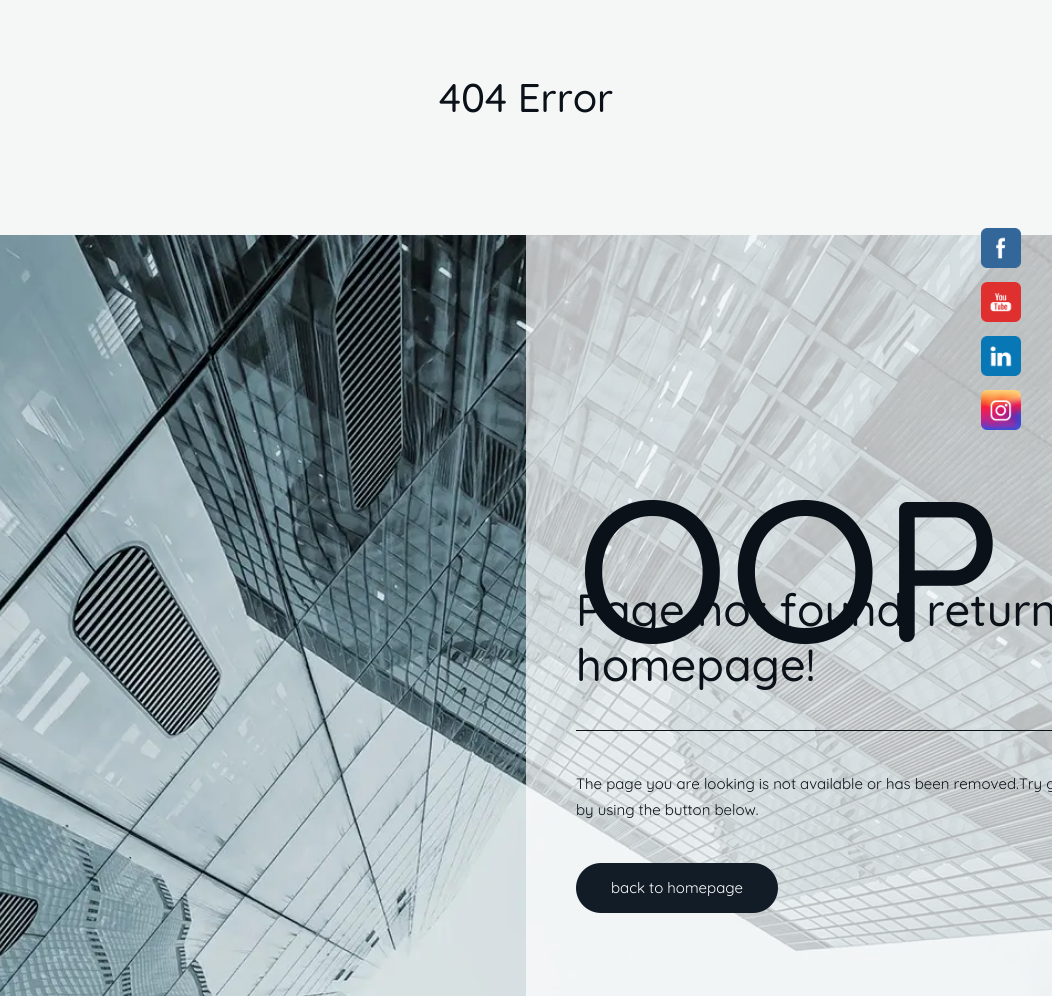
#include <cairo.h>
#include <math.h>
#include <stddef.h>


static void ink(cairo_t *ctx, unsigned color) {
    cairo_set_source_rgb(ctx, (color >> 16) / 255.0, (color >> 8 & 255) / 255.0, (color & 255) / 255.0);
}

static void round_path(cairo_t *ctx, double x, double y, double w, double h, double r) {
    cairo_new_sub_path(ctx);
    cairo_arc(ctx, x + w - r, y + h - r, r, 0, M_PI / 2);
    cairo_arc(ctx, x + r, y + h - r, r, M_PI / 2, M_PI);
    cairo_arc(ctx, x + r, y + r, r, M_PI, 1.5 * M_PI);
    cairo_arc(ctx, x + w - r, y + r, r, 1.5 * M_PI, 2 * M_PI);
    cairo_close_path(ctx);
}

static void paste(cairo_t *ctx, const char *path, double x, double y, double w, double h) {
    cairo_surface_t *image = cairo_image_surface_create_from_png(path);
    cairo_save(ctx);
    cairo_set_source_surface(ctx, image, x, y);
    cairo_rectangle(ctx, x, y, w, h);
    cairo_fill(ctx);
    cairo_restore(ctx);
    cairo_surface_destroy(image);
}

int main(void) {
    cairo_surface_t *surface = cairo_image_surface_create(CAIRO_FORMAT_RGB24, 1052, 996);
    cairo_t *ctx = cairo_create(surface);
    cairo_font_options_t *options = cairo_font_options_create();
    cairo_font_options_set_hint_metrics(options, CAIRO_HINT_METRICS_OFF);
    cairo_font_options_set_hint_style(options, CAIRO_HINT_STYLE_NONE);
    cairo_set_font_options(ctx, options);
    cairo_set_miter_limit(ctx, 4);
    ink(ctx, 0xF5F6F6);
    cairo_paint(ctx);
    cairo_select_font_face(ctx, "Quicksand Medium", CAIRO_FONT_SLANT_NORMAL, CAIRO_FONT_WEIGHT_NORMAL);
    cairo_set_font_size(ctx, 40);
    ink(ctx, 0x0A1119);
    cairo_move_to(ctx, 439, 112);
    cairo_show_text(ctx, "404 Error");
    paste(ctx, "media/1.png", 0, 235, 1052, 761);
    cairo_set_source_rgba(ctx, 1, 1, 1, 0.7);
    cairo_rectangle(ctx, 526, 235, 526, 761);
    cairo_fill(ctx);
    cairo_set_font_size(ctx, 45);
    ink(ctx, 0x0A1119);
    cairo_move_to(ctx, 576, 626);
    cairo_show_text(ctx, "Page not found, return");
    cairo_set_font_size(ctx, 200);
    cairo_move_to(ctx, 576, 642);
    cairo_show_text(ctx, "OOP");
    cairo_set_font_size(ctx, 45);
    cairo_move_to(ctx, 576, 681);
    cairo_show_text(ctx, "homepage!");
    cairo_rectangle(ctx, 576, 730, 476, 1);
    cairo_fill(ctx);
    cairo_select_font_face(ctx, "Quicksand", CAIRO_FONT_SLANT_NORMAL, CAIRO_FONT_WEIGHT_NORMAL);
    cairo_set_font_size(ctx, 15);
    cairo_move_to(ctx, 576, 789);
    cairo_show_text(ctx, "The page you are looking is not available or has been removed.Try g");
    cairo_move_to(ctx, 576, 815);
    cairo_show_text(ctx, "by using the button below.");
    ink(ctx, 0x121C27);
    round_path(ctx, 576, 863, 202, 50, 25);
    cairo_fill(ctx);
    ink(ctx, 0xFFFFFF);
    cairo_move_to(ctx, 611, 893);
    cairo_show_text(ctx, "back to homepage");
    paste(ctx, "media/2.png", 981, 228, 40, 40);
    paste(ctx, "media/3.png", 981, 282, 40, 40);
    paste(ctx, "media/4.png", 981, 336, 40, 40);
    paste(ctx, "media/5.png", 981, 390, 40, 40);
    cairo_surface_write_to_png(surface, "image.png");
    cairo_font_options_destroy(options);
    cairo_destroy(ctx);
    cairo_surface_destroy(surface);
    return 0;
}
